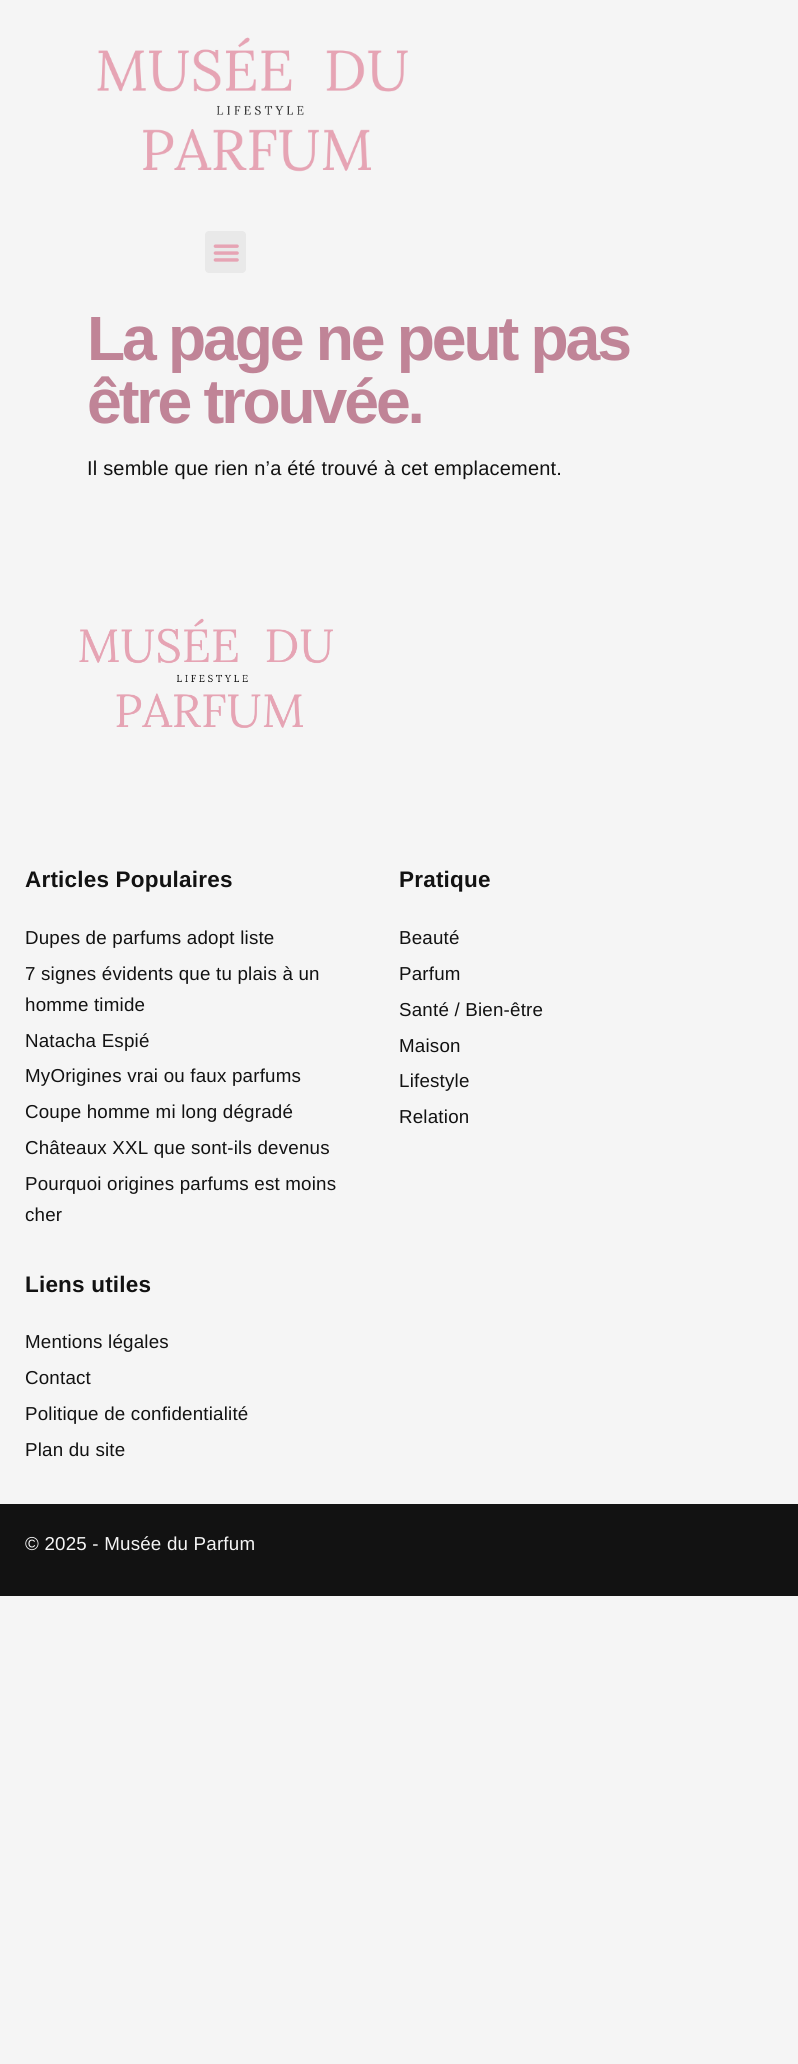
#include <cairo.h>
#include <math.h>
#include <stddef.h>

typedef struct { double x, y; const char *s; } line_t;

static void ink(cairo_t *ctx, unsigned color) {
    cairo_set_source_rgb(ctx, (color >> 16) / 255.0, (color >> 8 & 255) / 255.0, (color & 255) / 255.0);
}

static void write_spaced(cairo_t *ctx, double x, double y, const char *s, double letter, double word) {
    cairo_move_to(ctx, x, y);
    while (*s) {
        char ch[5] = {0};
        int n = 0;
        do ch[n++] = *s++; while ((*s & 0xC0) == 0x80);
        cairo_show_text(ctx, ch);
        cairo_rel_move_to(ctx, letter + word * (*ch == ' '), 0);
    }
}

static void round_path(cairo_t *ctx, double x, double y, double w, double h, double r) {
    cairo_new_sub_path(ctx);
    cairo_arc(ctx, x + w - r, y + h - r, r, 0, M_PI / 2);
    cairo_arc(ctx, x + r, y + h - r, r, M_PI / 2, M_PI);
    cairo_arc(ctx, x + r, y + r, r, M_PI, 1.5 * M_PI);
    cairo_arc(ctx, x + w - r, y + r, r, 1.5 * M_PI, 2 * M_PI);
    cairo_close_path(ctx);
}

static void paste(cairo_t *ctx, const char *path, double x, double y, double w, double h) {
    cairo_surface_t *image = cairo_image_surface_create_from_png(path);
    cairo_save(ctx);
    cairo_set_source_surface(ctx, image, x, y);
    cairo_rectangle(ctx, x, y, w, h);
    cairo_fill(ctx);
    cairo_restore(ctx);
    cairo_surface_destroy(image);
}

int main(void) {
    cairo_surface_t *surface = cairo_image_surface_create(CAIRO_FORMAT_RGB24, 798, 2064);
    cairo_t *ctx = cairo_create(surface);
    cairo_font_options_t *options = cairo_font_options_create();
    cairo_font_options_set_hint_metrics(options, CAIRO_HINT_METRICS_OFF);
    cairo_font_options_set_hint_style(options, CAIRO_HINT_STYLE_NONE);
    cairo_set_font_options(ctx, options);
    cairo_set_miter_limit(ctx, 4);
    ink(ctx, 0xF5F5F5);
    cairo_paint(ctx);
    paste(ctx, "media/1.png", 97, 37, 311, 135);
    ink(ctx, 0xE9E9E9);
    round_path(ctx, 205, 231, 41, 42, 4);
    cairo_fill(ctx);
    paste(ctx, "media/2.png", 213, 244, 26, 18);
    cairo_select_font_face(ctx, "Liberation Sans", CAIRO_FONT_SLANT_NORMAL, CAIRO_FONT_WEIGHT_BOLD);
    cairo_set_font_size(ctx, 62.5);
    ink(ctx, 0xC08497);
    write_spaced(ctx, 87, 360, "La page ne peut pas", -3.1, 0);
    write_spaced(ctx, 87, 423, "être trouvée.", -3.1, 0);
    cairo_select_font_face(ctx, "Liberation Sans", CAIRO_FONT_SLANT_NORMAL, CAIRO_FONT_WEIGHT_NORMAL);
    cairo_set_font_size(ctx, 20);
    ink(ctx, 0x121212);
    write_spaced(ctx, 87, 475, "Il semble que rien n’a été trouvé à cet emplacement.", 0.2, 0);
    paste(ctx, "media/3.png", 79, 618, 254, 110);
    cairo_select_font_face(ctx, "Liberation Sans", CAIRO_FONT_SLANT_NORMAL, CAIRO_FONT_WEIGHT_BOLD);
    cairo_set_font_size(ctx, 22.5);
    write_spaced(ctx, 25, 887, "Articles Populaires", 0.2, 0);
    cairo_select_font_face(ctx, "Liberation Sans", CAIRO_FONT_SLANT_NORMAL, CAIRO_FONT_WEIGHT_NORMAL);
    cairo_set_font_size(ctx, 18.75);
    {
        static const line_t items[] = {
            {25, 944, "Dupes de parfums adopt liste"},
            {25, 980, "7 signes évidents que tu plais à un"},
            {25, 1011, "homme timide"},
            {25, 1047, "Natacha Espié"},
            {25, 1082, "MyOrigines vrai ou faux parfums"},
            {25, 1118, "Coupe homme mi long dégradé"},
            {25, 1154, "Châteaux XXL que sont-ils devenus"},
            {25, 1190, "Pourquoi origines parfums est moins"},
            {25, 1221, "cher"},
        };
        for (size_t i = 0; i < sizeof items / sizeof *items; i++) {
            write_spaced(ctx, items[i].x, items[i].y, items[i].s, 0.2, 0);
        }
    }
    cairo_select_font_face(ctx, "Liberation Sans", CAIRO_FONT_SLANT_NORMAL, CAIRO_FONT_WEIGHT_BOLD);
    cairo_set_font_size(ctx, 22.5);
    write_spaced(ctx, 399, 887, "Pratique", 0.2, 0);
    cairo_select_font_face(ctx, "Liberation Sans", CAIRO_FONT_SLANT_NORMAL, CAIRO_FONT_WEIGHT_NORMAL);
    cairo_set_font_size(ctx, 18.75);
    {
        static const line_t items[] = {
            {399, 944, "Beauté"},
            {399, 980, "Parfum"},
            {399, 1016, "Santé / Bien-être"},
            {399, 1052, "Maison"},
            {399, 1087, "Lifestyle"},
            {399, 1123, "Relation"},
        };
        for (size_t i = 0; i < sizeof items / sizeof *items; i++) {
            write_spaced(ctx, items[i].x, items[i].y, items[i].s, 0.2, 0);
        }
    }
    cairo_select_font_face(ctx, "Liberation Sans", CAIRO_FONT_SLANT_NORMAL, CAIRO_FONT_WEIGHT_BOLD);
    cairo_set_font_size(ctx, 22.5);
    write_spaced(ctx, 25, 1292, "Liens utiles", 0.2, 0);
    cairo_select_font_face(ctx, "Liberation Sans", CAIRO_FONT_SLANT_NORMAL, CAIRO_FONT_WEIGHT_NORMAL);
    cairo_set_font_size(ctx, 18.75);
    {
        static const line_t items[] = {
            {25, 1348, "Mentions légales"},
            {25, 1384, "Contact"},
            {25, 1420, "Politique de confidentialité"},
            {25, 1456, "Plan du site"},
        };
        for (size_t i = 0; i < sizeof items / sizeof *items; i++) {
            write_spaced(ctx, items[i].x, items[i].y, items[i].s, 0.2, 0);
        }
    }
    cairo_rectangle(ctx, 0, 1504, 798, 92);
    cairo_fill(ctx);
    ink(ctx, 0xF5F5F5);
    write_spaced(ctx, 25, 1550, "© 2025 - Musée du Parfum", 0.2, 0);
    cairo_surface_write_to_png(surface, "image.png");
    cairo_font_options_destroy(options);
    cairo_destroy(ctx);
    cairo_surface_destroy(surface);
    return 0;
}
